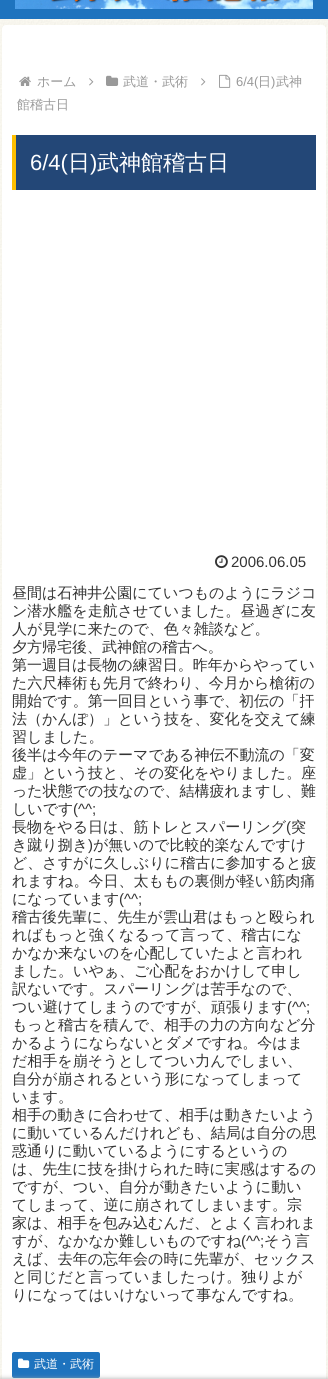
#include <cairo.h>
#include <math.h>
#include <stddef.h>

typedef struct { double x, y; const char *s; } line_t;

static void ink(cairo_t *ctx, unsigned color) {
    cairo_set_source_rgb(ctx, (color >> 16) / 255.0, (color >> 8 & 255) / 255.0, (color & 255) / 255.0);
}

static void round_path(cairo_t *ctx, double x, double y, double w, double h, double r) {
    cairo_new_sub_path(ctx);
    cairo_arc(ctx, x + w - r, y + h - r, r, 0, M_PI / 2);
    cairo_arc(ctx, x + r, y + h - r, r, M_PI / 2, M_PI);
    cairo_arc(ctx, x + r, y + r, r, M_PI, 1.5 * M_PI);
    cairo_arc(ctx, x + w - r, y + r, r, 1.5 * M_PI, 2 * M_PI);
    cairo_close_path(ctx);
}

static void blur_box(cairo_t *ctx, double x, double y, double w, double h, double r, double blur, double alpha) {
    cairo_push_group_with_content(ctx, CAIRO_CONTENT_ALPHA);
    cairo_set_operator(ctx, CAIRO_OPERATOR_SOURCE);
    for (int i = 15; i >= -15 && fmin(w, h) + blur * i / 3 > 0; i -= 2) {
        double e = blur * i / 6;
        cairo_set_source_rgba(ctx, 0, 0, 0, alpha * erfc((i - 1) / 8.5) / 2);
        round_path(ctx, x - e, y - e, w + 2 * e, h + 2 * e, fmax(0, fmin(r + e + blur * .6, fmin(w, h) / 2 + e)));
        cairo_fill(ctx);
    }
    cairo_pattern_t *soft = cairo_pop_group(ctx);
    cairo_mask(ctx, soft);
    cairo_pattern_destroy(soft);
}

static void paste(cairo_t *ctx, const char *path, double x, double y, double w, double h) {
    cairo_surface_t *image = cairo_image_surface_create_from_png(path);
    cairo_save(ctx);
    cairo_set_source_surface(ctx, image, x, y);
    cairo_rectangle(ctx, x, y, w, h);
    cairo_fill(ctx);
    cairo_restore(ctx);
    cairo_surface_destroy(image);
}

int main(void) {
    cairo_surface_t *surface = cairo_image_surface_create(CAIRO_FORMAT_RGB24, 328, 1379);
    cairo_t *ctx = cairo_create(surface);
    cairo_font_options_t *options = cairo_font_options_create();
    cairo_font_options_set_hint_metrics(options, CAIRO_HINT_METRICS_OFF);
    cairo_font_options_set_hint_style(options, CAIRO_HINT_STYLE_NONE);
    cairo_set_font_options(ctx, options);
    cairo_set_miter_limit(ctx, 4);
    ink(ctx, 0xFFFFFF);
    cairo_paint(ctx);
    paste(ctx, "media/1.png", 0, 19, 328, 1360);
    ink(ctx, 0x1E73BE);
    cairo_rectangle(ctx, 0, 0, 328, 19);
    cairo_fill(ctx);
    paste(ctx, "media/2.png", 15, 0, 298, 9);
    ink(ctx, 0xFFFFFF);
    round_path(ctx, 2, 25, 324, 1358, 4);
    cairo_fill(ctx);
    paste(ctx, "media/3.png", 201, 78, 5, 8);
    paste(ctx, "media/4.png", 219, 74, 12, 14);
    cairo_select_font_face(ctx, "Liberation Sans", CAIRO_FONT_SLANT_NORMAL, CAIRO_FONT_WEIGHT_NORMAL);
    cairo_set_font_size(ctx, 13);
    ink(ctx, 0x999999);
    cairo_move_to(ctx, 236, 86);
    cairo_show_text(ctx, "6/4(");
    cairo_select_font_face(ctx, "WenQuanYi Zen Hei Medium", CAIRO_FONT_SLANT_NORMAL, CAIRO_FONT_WEIGHT_NORMAL);
    cairo_move_to(ctx, 258, 86);
    cairo_show_text(ctx, "日");
    cairo_select_font_face(ctx, "Liberation Sans", CAIRO_FONT_SLANT_NORMAL, CAIRO_FONT_WEIGHT_NORMAL);
    cairo_move_to(ctx, 271, 86);
    cairo_show_text(ctx, ")");
    cairo_select_font_face(ctx, "WenQuanYi Zen Hei Medium", CAIRO_FONT_SLANT_NORMAL, CAIRO_FONT_WEIGHT_NORMAL);
    cairo_move_to(ctx, 276, 86);
    cairo_show_text(ctx, "武神");
    cairo_move_to(ctx, 17, 109);
    cairo_show_text(ctx, "館稽古日");
    paste(ctx, "media/5.png", 19, 76, 12, 10);
    cairo_move_to(ctx, 37, 86);
    cairo_show_text(ctx, "ホーム");
    paste(ctx, "media/3.png", 89, 78, 5, 8);
    paste(ctx, "media/6.png", 106, 75, 13, 11);
    cairo_move_to(ctx, 123, 86);
    cairo_show_text(ctx, "武道・武術");
    ink(ctx, 0x234777);
    cairo_rectangle(ctx, 16, 135, 300, 55);
    cairo_fill(ctx);
    ink(ctx, 0xFEBF00);
    cairo_rectangle(ctx, 12, 135, 4, 55);
    cairo_fill(ctx);
    cairo_select_font_face(ctx, "Liberation Sans", CAIRO_FONT_SLANT_NORMAL, CAIRO_FONT_WEIGHT_NORMAL);
    cairo_set_font_size(ctx, 22);
    ink(ctx, 0xFFFFFF);
    cairo_move_to(ctx, 30, 170);
    cairo_show_text(ctx, "6/4(");
    cairo_select_font_face(ctx, "WenQuanYi Zen Hei Medium", CAIRO_FONT_SLANT_NORMAL, CAIRO_FONT_WEIGHT_NORMAL);
    cairo_move_to(ctx, 68, 170);
    cairo_show_text(ctx, "日");
    cairo_select_font_face(ctx, "Liberation Sans", CAIRO_FONT_SLANT_NORMAL, CAIRO_FONT_WEIGHT_NORMAL);
    cairo_move_to(ctx, 90, 170);
    cairo_show_text(ctx, ")");
    cairo_select_font_face(ctx, "WenQuanYi Zen Hei Medium", CAIRO_FONT_SLANT_NORMAL, CAIRO_FONT_WEIGHT_NORMAL);
    cairo_move_to(ctx, 97, 170);
    cairo_show_text(ctx, "武神館稽古日");
    paste(ctx, "media/7.png", 215, 555, 13, 14);
    cairo_select_font_face(ctx, "Liberation Sans", CAIRO_FONT_SLANT_NORMAL, CAIRO_FONT_WEIGHT_NORMAL);
    cairo_set_font_size(ctx, 15);
    ink(ctx, 0x333333);
    cairo_move_to(ctx, 231, 567);
    cairo_show_text(ctx, "2006.06.05");
    cairo_select_font_face(ctx, "WenQuanYi Zen Hei Medium", CAIRO_FONT_SLANT_NORMAL, CAIRO_FONT_WEIGHT_NORMAL);
    {
        static const line_t items[] = {
            {12, 598, "昼間は石神井公園にていつものようにラジコ"},
            {12, 616, "ン潜水艦を走航させていました。昼過ぎに友"},
            {12, 634, "人が見学に来たので、色々雑談など。"},
            {12, 652, "夕方帰宅後、武神館の稽古へ。"},
            {12, 670, "第一週目は長物の練習日。昨年からやってい"},
            {12, 688, "た六尺棒術も先月で終わり、今月から槍術の"},
            {12, 706, "開始です。第一回目という事で、初伝の「扞"},
            {12, 724, "法（かんぽ）」という技を、変化を交えて練"},
            {12, 742, "習しました。"},
            {12, 760, "後半は今年のテーマである神伝不動流の「変"},
            {12, 778, "虚」という技と、その変化をやりました。座"},
            {12, 796, "った状態での技なので、結構疲れますし、難"},
            {12, 814, "しいです"},
        };
        for (size_t i = 0; i < sizeof items / sizeof *items; i++) {
            cairo_move_to(ctx, items[i].x, items[i].y);
            cairo_show_text(ctx, items[i].s);
        }
    }
    cairo_select_font_face(ctx, "Liberation Sans", CAIRO_FONT_SLANT_NORMAL, CAIRO_FONT_WEIGHT_NORMAL);
    cairo_move_to(ctx, 73, 814);
    cairo_show_text(ctx, "(^^;");
    cairo_select_font_face(ctx, "WenQuanYi Zen Hei Medium", CAIRO_FONT_SLANT_NORMAL, CAIRO_FONT_WEIGHT_NORMAL);
    cairo_move_to(ctx, 12, 832);
    cairo_show_text(ctx, "長物をやる日は、筋トレとスパーリング");
    cairo_select_font_face(ctx, "Liberation Sans", CAIRO_FONT_SLANT_NORMAL, CAIRO_FONT_WEIGHT_NORMAL);
    cairo_move_to(ctx, 286, 832);
    cairo_show_text(ctx, "(");
    cairo_select_font_face(ctx, "WenQuanYi Zen Hei Medium", CAIRO_FONT_SLANT_NORMAL, CAIRO_FONT_WEIGHT_NORMAL);
    cairo_move_to(ctx, 291, 832);
    cairo_show_text(ctx, "突");
    cairo_move_to(ctx, 12, 850);
    cairo_show_text(ctx, "き蹴り捌き");
    cairo_select_font_face(ctx, "Liberation Sans", CAIRO_FONT_SLANT_NORMAL, CAIRO_FONT_WEIGHT_NORMAL);
    cairo_move_to(ctx, 88, 850);
    cairo_show_text(ctx, ")");
    cairo_select_font_face(ctx, "WenQuanYi Zen Hei Medium", CAIRO_FONT_SLANT_NORMAL, CAIRO_FONT_WEIGHT_NORMAL);
    {
        static const line_t items[] = {
            {93, 850, "が無いので比較的楽なんですけ"},
            {12, 868, "ど、さすがに久しぶりに稽古に参加すると疲"},
            {12, 886, "れますね。今日、太ももの裏側が軽い筋肉痛"},
            {12, 904, "になっています"},
        };
        for (size_t i = 0; i < sizeof items / sizeof *items; i++) {
            cairo_move_to(ctx, items[i].x, items[i].y);
            cairo_show_text(ctx, items[i].s);
        }
    }
    cairo_select_font_face(ctx, "Liberation Sans", CAIRO_FONT_SLANT_NORMAL, CAIRO_FONT_WEIGHT_NORMAL);
    cairo_move_to(ctx, 119, 904);
    cairo_show_text(ctx, "(^^;");
    cairo_select_font_face(ctx, "WenQuanYi Zen Hei Medium", CAIRO_FONT_SLANT_NORMAL, CAIRO_FONT_WEIGHT_NORMAL);
    {
        static const line_t items[] = {
            {12, 922, "稽古後先輩に、先生が雲山君はもっと殴られ"},
            {12, 940, "ればもっと強くなるって言って、稽古にな"},
            {12, 958, "かなか来ないのを心配していたよと言われ"},
            {12, 976, "ました。いやぁ、ご心配をおかけして申し"},
            {12, 994, "訳ないです。スパーリングは苦手なので、"},
            {12, 1012, "つい避けてしまうのですが、頑張ります"},
        };
        for (size_t i = 0; i < sizeof items / sizeof *items; i++) {
            cairo_move_to(ctx, items[i].x, items[i].y);
            cairo_show_text(ctx, items[i].s);
        }
    }
    cairo_select_font_face(ctx, "Liberation Sans", CAIRO_FONT_SLANT_NORMAL, CAIRO_FONT_WEIGHT_NORMAL);
    cairo_move_to(ctx, 287, 1012);
    cairo_show_text(ctx, "(^^;");
    cairo_select_font_face(ctx, "WenQuanYi Zen Hei Medium", CAIRO_FONT_SLANT_NORMAL, CAIRO_FONT_WEIGHT_NORMAL);
    {
        static const line_t items[] = {
            {12, 1030, "もっと稽古を積んで、相手の力の方向など分"},
            {12, 1048, "かるようにならないとダメですね。今はま"},
            {12, 1066, "だ相手を崩そうとしてつい力んでしまい、"},
            {12, 1084, "自分が崩されるという形になってしまって"},
            {12, 1102, "います。"},
            {12, 1120, "相手の動きに合わせて、相手は動きたいよう"},
            {12, 1138, "に動いているんだけれども、結局は自分の思"},
            {12, 1156, "惑通りに動いているようにするというの"},
            {12, 1174, "は、先生に技を掛けられた時に実感はするの"},
            {12, 1192, "ですが、つい、自分が動きたいように動い"},
            {12, 1210, "てしまって、逆に崩されてしまいます。宗"},
            {12, 1228, "家は、相手を包み込むんだ、とよく言われま"},
            {12, 1246, "すが、なかなか難しいものですね"},
        };
        for (size_t i = 0; i < sizeof items / sizeof *items; i++) {
            cairo_move_to(ctx, items[i].x, items[i].y);
            cairo_show_text(ctx, items[i].s);
        }
    }
    cairo_select_font_face(ctx, "Liberation Sans", CAIRO_FONT_SLANT_NORMAL, CAIRO_FONT_WEIGHT_NORMAL);
    cairo_move_to(ctx, 241, 1246);
    cairo_show_text(ctx, "(^^;");
    cairo_select_font_face(ctx, "WenQuanYi Zen Hei Medium", CAIRO_FONT_SLANT_NORMAL, CAIRO_FONT_WEIGHT_NORMAL);
    {
        static const line_t items[] = {
            {264, 1246, "そう言"},
            {12, 1264, "えば、去年の忘年会の時に先輩が、セックス"},
            {12, 1282, "と同じだと言っていましたっけ。独りよが"},
            {12, 1300, "りになってはいけないって事なんですね。"},
        };
        for (size_t i = 0; i < sizeof items / sizeof *items; i++) {
            cairo_move_to(ctx, items[i].x, items[i].y);
            cairo_show_text(ctx, items[i].s);
        }
    }
    ink(ctx, 0x1E73BE);
    round_path(ctx, 12, 1352, 88, 26, 2);
    cairo_fill(ctx);
    paste(ctx, "media/8.png", 18, 1358, 12, 10);
    cairo_set_font_size(ctx, 12);
    ink(ctx, 0xFFFFFF);
    cairo_move_to(ctx, 34, 1368);
    cairo_show_text(ctx, "武道・武術");
    ink(ctx, 0xA9A9A9);
    blur_box(ctx, 0, 1379, 328, 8, 0, 2.5, 1);
    cairo_surface_write_to_png(surface, "image.png");
    cairo_font_options_destroy(options);
    cairo_destroy(ctx);
    cairo_surface_destroy(surface);
    return 0;
}
